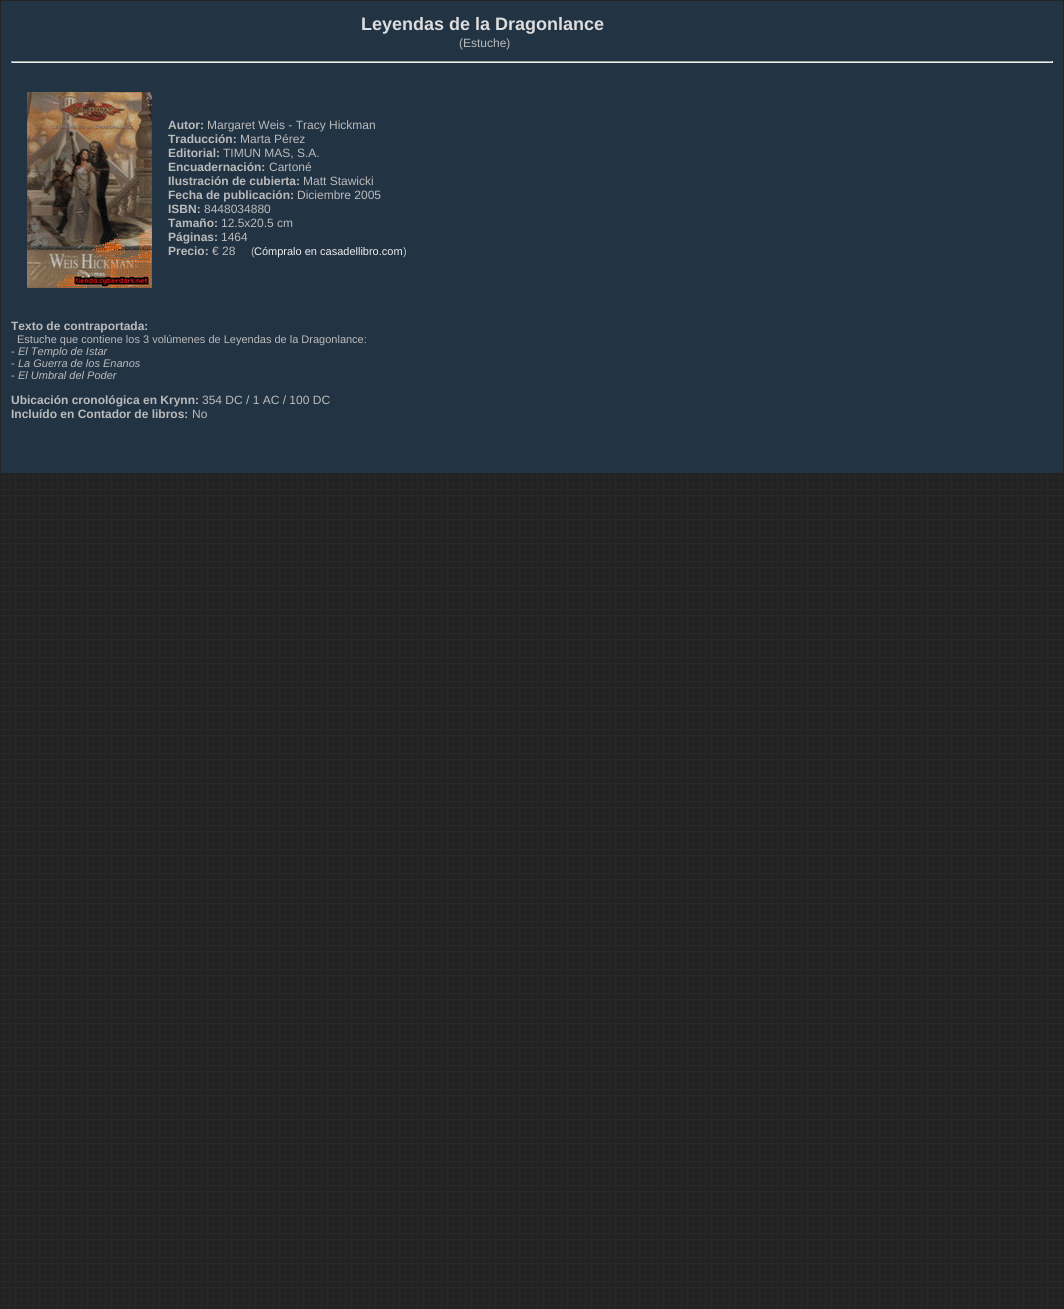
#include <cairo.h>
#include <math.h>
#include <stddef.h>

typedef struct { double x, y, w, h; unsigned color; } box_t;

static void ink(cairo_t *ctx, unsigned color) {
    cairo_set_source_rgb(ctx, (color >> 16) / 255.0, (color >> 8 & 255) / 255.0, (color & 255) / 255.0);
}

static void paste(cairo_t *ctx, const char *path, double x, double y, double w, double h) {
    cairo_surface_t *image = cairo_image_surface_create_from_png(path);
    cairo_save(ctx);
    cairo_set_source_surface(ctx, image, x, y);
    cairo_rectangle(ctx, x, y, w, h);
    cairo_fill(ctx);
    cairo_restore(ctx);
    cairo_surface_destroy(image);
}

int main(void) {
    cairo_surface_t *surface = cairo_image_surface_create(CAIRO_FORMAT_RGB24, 1064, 1309);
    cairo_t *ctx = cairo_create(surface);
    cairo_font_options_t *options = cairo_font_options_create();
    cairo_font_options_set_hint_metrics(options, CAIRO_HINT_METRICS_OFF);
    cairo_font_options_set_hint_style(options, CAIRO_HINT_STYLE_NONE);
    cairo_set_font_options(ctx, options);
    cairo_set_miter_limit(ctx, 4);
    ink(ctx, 0xFFFFFF);
    cairo_paint(ctx);
    paste(ctx, "media/1.png", 0, 0, 1064, 1309);
    ink(ctx, 0x223344);
    cairo_rectangle(ctx, 1, 1, 1062, 472);
    cairo_fill(ctx);
    cairo_select_font_face(ctx, "Liberation Sans", CAIRO_FONT_SLANT_NORMAL, CAIRO_FONT_WEIGHT_BOLD);
    cairo_set_font_size(ctx, 18);
    ink(ctx, 0xDDDDDD);
    cairo_move_to(ctx, 361, 30);
    cairo_show_text(ctx, "Leyendas de la Dragonlance");
    cairo_select_font_face(ctx, "Liberation Sans", CAIRO_FONT_SLANT_NORMAL, CAIRO_FONT_WEIGHT_NORMAL);
    cairo_set_font_size(ctx, 12);
    ink(ctx, 0xBBBBBB);
    cairo_move_to(ctx, 459, 47);
    cairo_show_text(ctx, "(Estuche)");
    {
        static const box_t items[] = {
            {11, 61, 1042, 1, 0x9F9F9F},
            {1052, 61, 1, 2, 0xEEEEEE},
            {11, 62, 1042, 1, 0xEEEEEE},
            {11, 61, 1, 2, 0x9F9F9F},
        };
        for (size_t i = 0; i < sizeof items / sizeof *items; i++) {
            ink(ctx, items[i].color);
            cairo_rectangle(ctx, items[i].x, items[i].y, items[i].w, items[i].h);
            cairo_fill(ctx);
        }
    }
    paste(ctx, "media/2.png", 27, 92, 125, 196);
    cairo_select_font_face(ctx, "Liberation Sans", CAIRO_FONT_SLANT_NORMAL, CAIRO_FONT_WEIGHT_BOLD);
    ink(ctx, 0xBBBBBB);
    cairo_move_to(ctx, 168, 129);
    cairo_show_text(ctx, "Autor:");
    cairo_select_font_face(ctx, "Liberation Sans", CAIRO_FONT_SLANT_NORMAL, CAIRO_FONT_WEIGHT_NORMAL);
    cairo_move_to(ctx, 207, 129);
    cairo_show_text(ctx, "Margaret Weis - Tracy Hickman");
    cairo_select_font_face(ctx, "Liberation Sans", CAIRO_FONT_SLANT_NORMAL, CAIRO_FONT_WEIGHT_BOLD);
    cairo_move_to(ctx, 168, 143);
    cairo_show_text(ctx, "Traducción:");
    cairo_select_font_face(ctx, "Liberation Sans", CAIRO_FONT_SLANT_NORMAL, CAIRO_FONT_WEIGHT_NORMAL);
    cairo_move_to(ctx, 240, 143);
    cairo_show_text(ctx, "Marta Pérez");
    cairo_select_font_face(ctx, "Liberation Sans", CAIRO_FONT_SLANT_NORMAL, CAIRO_FONT_WEIGHT_BOLD);
    cairo_move_to(ctx, 168, 157);
    cairo_show_text(ctx, "Editorial:");
    cairo_select_font_face(ctx, "Liberation Sans", CAIRO_FONT_SLANT_NORMAL, CAIRO_FONT_WEIGHT_NORMAL);
    cairo_move_to(ctx, 223, 157);
    cairo_show_text(ctx, "TIMUN MAS, S.A.");
    cairo_select_font_face(ctx, "Liberation Sans", CAIRO_FONT_SLANT_NORMAL, CAIRO_FONT_WEIGHT_BOLD);
    cairo_move_to(ctx, 168, 171);
    cairo_show_text(ctx, "Encuadernación:");
    cairo_select_font_face(ctx, "Liberation Sans", CAIRO_FONT_SLANT_NORMAL, CAIRO_FONT_WEIGHT_NORMAL);
    cairo_move_to(ctx, 269, 171);
    cairo_show_text(ctx, "Cartoné");
    cairo_select_font_face(ctx, "Liberation Sans", CAIRO_FONT_SLANT_NORMAL, CAIRO_FONT_WEIGHT_BOLD);
    cairo_move_to(ctx, 168, 185);
    cairo_show_text(ctx, "Ilustración de cubierta:");
    cairo_select_font_face(ctx, "Liberation Sans", CAIRO_FONT_SLANT_NORMAL, CAIRO_FONT_WEIGHT_NORMAL);
    cairo_move_to(ctx, 303, 185);
    cairo_show_text(ctx, "Matt Stawicki");
    cairo_select_font_face(ctx, "Liberation Sans", CAIRO_FONT_SLANT_NORMAL, CAIRO_FONT_WEIGHT_BOLD);
    cairo_move_to(ctx, 168, 199);
    cairo_show_text(ctx, "Fecha de publicación:");
    cairo_select_font_face(ctx, "Liberation Sans", CAIRO_FONT_SLANT_NORMAL, CAIRO_FONT_WEIGHT_NORMAL);
    cairo_move_to(ctx, 297, 199);
    cairo_show_text(ctx, "Diciembre 2005");
    cairo_select_font_face(ctx, "Liberation Sans", CAIRO_FONT_SLANT_NORMAL, CAIRO_FONT_WEIGHT_BOLD);
    cairo_move_to(ctx, 168, 213);
    cairo_show_text(ctx, "ISBN:");
    cairo_select_font_face(ctx, "Liberation Sans", CAIRO_FONT_SLANT_NORMAL, CAIRO_FONT_WEIGHT_NORMAL);
    cairo_move_to(ctx, 204, 213);
    cairo_show_text(ctx, "8448034880");
    cairo_select_font_face(ctx, "Liberation Sans", CAIRO_FONT_SLANT_NORMAL, CAIRO_FONT_WEIGHT_BOLD);
    cairo_move_to(ctx, 168, 227);
    cairo_show_text(ctx, "Tamaño:");
    cairo_select_font_face(ctx, "Liberation Sans", CAIRO_FONT_SLANT_NORMAL, CAIRO_FONT_WEIGHT_NORMAL);
    cairo_move_to(ctx, 221, 227);
    cairo_show_text(ctx, "12.5x20.5 cm");
    cairo_select_font_face(ctx, "Liberation Sans", CAIRO_FONT_SLANT_NORMAL, CAIRO_FONT_WEIGHT_BOLD);
    cairo_move_to(ctx, 168, 241);
    cairo_show_text(ctx, "Páginas:");
    cairo_select_font_face(ctx, "Liberation Sans", CAIRO_FONT_SLANT_NORMAL, CAIRO_FONT_WEIGHT_NORMAL);
    cairo_move_to(ctx, 221, 241);
    cairo_show_text(ctx, "1464");
    cairo_select_font_face(ctx, "Liberation Sans", CAIRO_FONT_SLANT_NORMAL, CAIRO_FONT_WEIGHT_BOLD);
    cairo_move_to(ctx, 168, 255);
    cairo_show_text(ctx, "Precio:");
    cairo_select_font_face(ctx, "Liberation Sans", CAIRO_FONT_SLANT_NORMAL, CAIRO_FONT_WEIGHT_NORMAL);
    cairo_move_to(ctx, 212, 255);
    cairo_show_text(ctx, "€ 28");
    cairo_set_font_size(ctx, 11);
    cairo_move_to(ctx, 251, 255);
    cairo_show_text(ctx, "(");
    ink(ctx, 0xEEEEEE);
    cairo_move_to(ctx, 254, 255);
    cairo_show_text(ctx, "Cómpralo en casadellibro.com");
    ink(ctx, 0xBBBBBB);
    cairo_move_to(ctx, 403, 255);
    cairo_show_text(ctx, ")");
    cairo_select_font_face(ctx, "Liberation Sans", CAIRO_FONT_SLANT_NORMAL, CAIRO_FONT_WEIGHT_BOLD);
    cairo_set_font_size(ctx, 12);
    cairo_move_to(ctx, 11, 330);
    cairo_show_text(ctx, "Texto de contraportada:");
    cairo_select_font_face(ctx, "Liberation Sans", CAIRO_FONT_SLANT_NORMAL, CAIRO_FONT_WEIGHT_NORMAL);
    cairo_set_font_size(ctx, 11);
    cairo_move_to(ctx, 17, 343);
    cairo_show_text(ctx, "Estuche que contiene los 3 volúmenes de Leyendas de la Dragonlance:");
    cairo_move_to(ctx, 11, 355);
    cairo_show_text(ctx, "-");
    cairo_select_font_face(ctx, "Liberation Sans", CAIRO_FONT_SLANT_ITALIC, CAIRO_FONT_WEIGHT_NORMAL);
    cairo_move_to(ctx, 18, 355);
    cairo_show_text(ctx, "El Templo de Istar");
    cairo_select_font_face(ctx, "Liberation Sans", CAIRO_FONT_SLANT_NORMAL, CAIRO_FONT_WEIGHT_NORMAL);
    cairo_move_to(ctx, 11, 367);
    cairo_show_text(ctx, "-");
    cairo_select_font_face(ctx, "Liberation Sans", CAIRO_FONT_SLANT_ITALIC, CAIRO_FONT_WEIGHT_NORMAL);
    cairo_move_to(ctx, 18, 367);
    cairo_show_text(ctx, "La Guerra de los Enanos");
    cairo_select_font_face(ctx, "Liberation Sans", CAIRO_FONT_SLANT_NORMAL, CAIRO_FONT_WEIGHT_NORMAL);
    cairo_move_to(ctx, 11, 379);
    cairo_show_text(ctx, "-");
    cairo_select_font_face(ctx, "Liberation Sans", CAIRO_FONT_SLANT_ITALIC, CAIRO_FONT_WEIGHT_NORMAL);
    cairo_move_to(ctx, 18, 379);
    cairo_show_text(ctx, "El Umbral del Poder");
    cairo_select_font_face(ctx, "Liberation Sans", CAIRO_FONT_SLANT_NORMAL, CAIRO_FONT_WEIGHT_BOLD);
    cairo_set_font_size(ctx, 12);
    cairo_move_to(ctx, 11, 404);
    cairo_show_text(ctx, "Ubicación cronológica en Krynn:");
    cairo_select_font_face(ctx, "Liberation Sans", CAIRO_FONT_SLANT_NORMAL, CAIRO_FONT_WEIGHT_NORMAL);
    cairo_move_to(ctx, 202, 404);
    cairo_show_text(ctx, "354 DC / 1 AC / 100 DC");
    cairo_select_font_face(ctx, "Liberation Sans", CAIRO_FONT_SLANT_NORMAL, CAIRO_FONT_WEIGHT_BOLD);
    cairo_move_to(ctx, 11, 418);
    cairo_show_text(ctx, "Incluído en Contador de libros:");
    cairo_select_font_face(ctx, "Liberation Sans", CAIRO_FONT_SLANT_NORMAL, CAIRO_FONT_WEIGHT_NORMAL);
    cairo_move_to(ctx, 192, 418);
    cairo_show_text(ctx, "No");
    cairo_surface_write_to_png(surface, "image.png");
    cairo_font_options_destroy(options);
    cairo_destroy(ctx);
    cairo_surface_destroy(surface);
    return 0;
}
